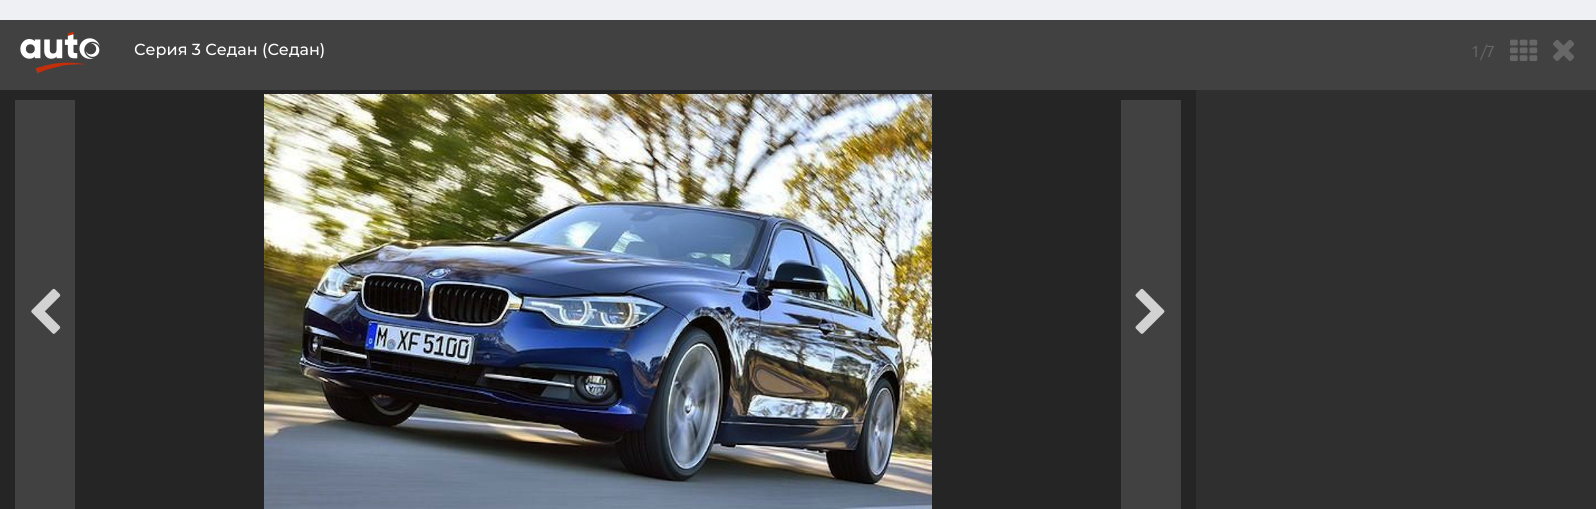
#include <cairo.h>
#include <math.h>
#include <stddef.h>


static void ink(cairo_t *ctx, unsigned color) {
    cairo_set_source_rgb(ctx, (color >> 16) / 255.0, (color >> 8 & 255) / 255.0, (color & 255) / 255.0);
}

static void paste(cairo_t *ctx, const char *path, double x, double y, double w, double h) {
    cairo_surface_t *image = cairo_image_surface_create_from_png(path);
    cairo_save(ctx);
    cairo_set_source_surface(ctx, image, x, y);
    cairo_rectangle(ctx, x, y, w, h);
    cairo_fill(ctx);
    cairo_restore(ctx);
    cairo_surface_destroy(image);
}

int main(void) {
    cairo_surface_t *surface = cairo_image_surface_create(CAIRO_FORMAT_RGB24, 1596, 509);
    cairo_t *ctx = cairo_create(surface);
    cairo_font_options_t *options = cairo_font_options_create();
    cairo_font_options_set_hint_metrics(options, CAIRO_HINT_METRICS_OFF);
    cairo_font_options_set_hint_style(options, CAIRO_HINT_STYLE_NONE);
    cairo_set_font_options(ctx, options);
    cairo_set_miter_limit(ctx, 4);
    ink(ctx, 0x252525);
    cairo_paint(ctx);
    ink(ctx, 0xEFF0F3);
    cairo_rectangle(ctx, 0, 0, 1596, 20);
    cairo_fill(ctx);
    ink(ctx, 0x424141);
    cairo_rectangle(ctx, 0, 20, 1596, 70);
    cairo_fill(ctx);
    paste(ctx, "media/1.png", 20, 31, 80, 43);
    cairo_select_font_face(ctx, "Montserrat Medium", CAIRO_FONT_SLANT_NORMAL, CAIRO_FONT_WEIGHT_NORMAL);
    cairo_set_font_size(ctx, 16);
    ink(ctx, 0xFFFFFF);
    cairo_move_to(ctx, 134, 55);
    cairo_show_text(ctx, "Серия 3 Седан (Седан)");
    cairo_select_font_face(ctx, "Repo", CAIRO_FONT_SLANT_NORMAL, CAIRO_FONT_WEIGHT_NORMAL);
    ink(ctx, 0x676767);
    cairo_move_to(ctx, 1471, 57);
    cairo_show_text(ctx, "1/7");
    paste(ctx, "media/2.png", 1510, 39, 28, 22);
    paste(ctx, "media/3.png", 1553, 40, 21, 21);
    ink(ctx, 0x414141);
    cairo_rectangle(ctx, 15, 100, 60, 409);
    cairo_fill(ctx);
    paste(ctx, "media/4.png", 31, 288, 30, 46);
    paste(ctx, "media/5.png", 264, 94, 668, 415);
    cairo_rectangle(ctx, 1121, 100, 60, 409);
    cairo_fill(ctx);
    paste(ctx, "media/6.png", 1135, 288, 30, 46);
    ink(ctx, 0x2F2F2F);
    cairo_rectangle(ctx, 1196, 90, 400, 419);
    cairo_fill(ctx);
    cairo_surface_write_to_png(surface, "image.png");
    cairo_font_options_destroy(options);
    cairo_destroy(ctx);
    cairo_surface_destroy(surface);
    return 0;
}
